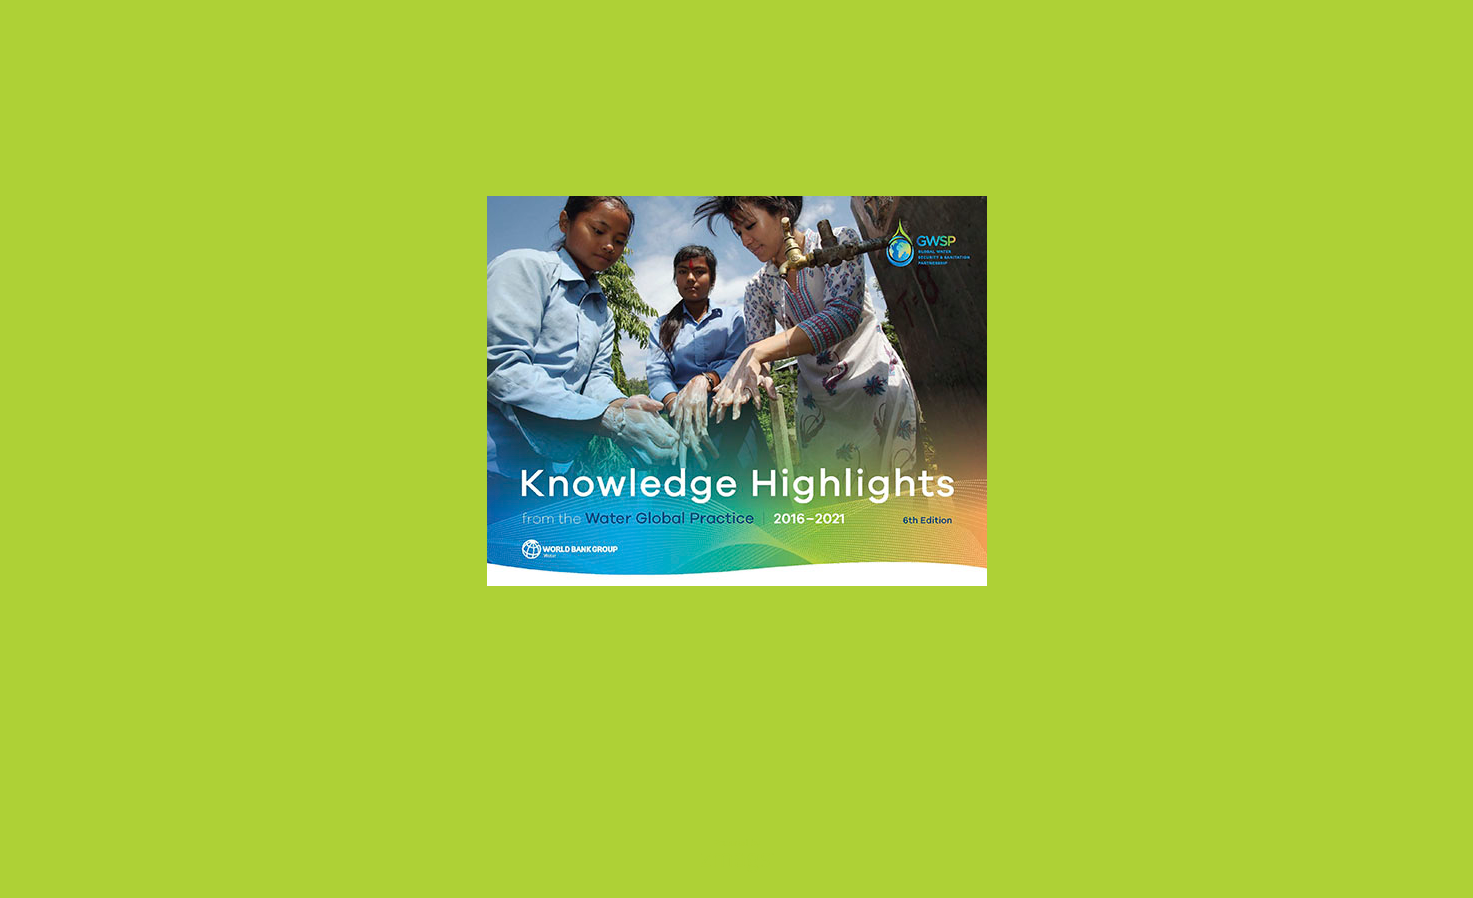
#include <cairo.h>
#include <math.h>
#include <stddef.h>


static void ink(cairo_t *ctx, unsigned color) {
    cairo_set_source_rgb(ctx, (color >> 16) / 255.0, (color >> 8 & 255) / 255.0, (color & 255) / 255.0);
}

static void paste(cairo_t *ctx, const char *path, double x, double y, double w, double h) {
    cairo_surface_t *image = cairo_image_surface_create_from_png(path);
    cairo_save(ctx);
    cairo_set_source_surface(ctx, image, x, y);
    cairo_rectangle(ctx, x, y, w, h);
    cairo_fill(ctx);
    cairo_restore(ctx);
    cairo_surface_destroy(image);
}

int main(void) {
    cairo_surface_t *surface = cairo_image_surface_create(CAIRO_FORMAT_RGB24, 1473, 898);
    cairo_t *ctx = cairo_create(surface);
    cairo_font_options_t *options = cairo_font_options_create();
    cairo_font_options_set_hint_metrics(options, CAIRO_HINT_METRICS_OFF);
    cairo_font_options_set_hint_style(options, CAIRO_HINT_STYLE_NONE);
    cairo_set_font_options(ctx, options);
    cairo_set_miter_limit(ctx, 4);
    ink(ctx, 0xFFFFFF);
    cairo_paint(ctx);
    paste(ctx, "media/1.png", 0, 0, 1473, 898);
    cairo_surface_write_to_png(surface, "image.png");
    cairo_font_options_destroy(options);
    cairo_destroy(ctx);
    cairo_surface_destroy(surface);
    return 0;
}
